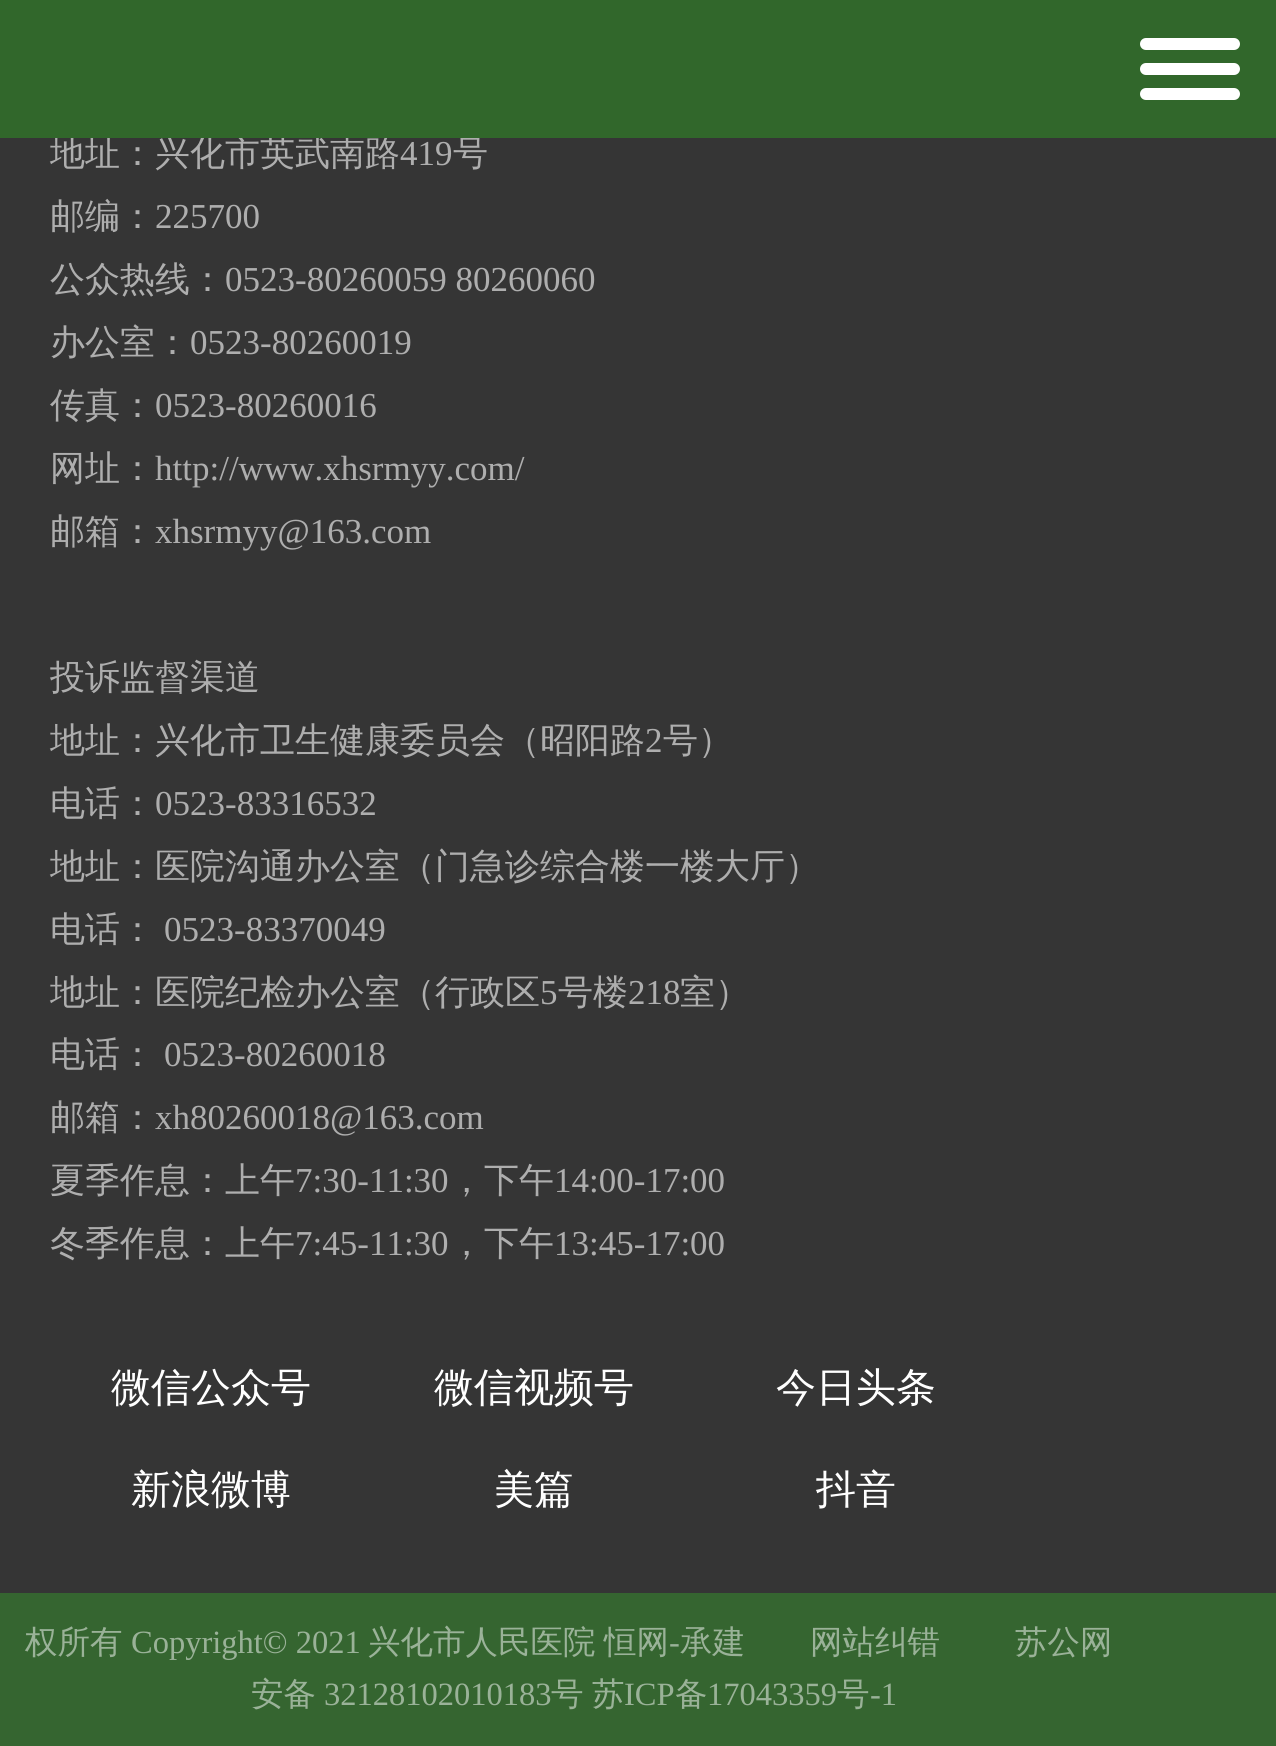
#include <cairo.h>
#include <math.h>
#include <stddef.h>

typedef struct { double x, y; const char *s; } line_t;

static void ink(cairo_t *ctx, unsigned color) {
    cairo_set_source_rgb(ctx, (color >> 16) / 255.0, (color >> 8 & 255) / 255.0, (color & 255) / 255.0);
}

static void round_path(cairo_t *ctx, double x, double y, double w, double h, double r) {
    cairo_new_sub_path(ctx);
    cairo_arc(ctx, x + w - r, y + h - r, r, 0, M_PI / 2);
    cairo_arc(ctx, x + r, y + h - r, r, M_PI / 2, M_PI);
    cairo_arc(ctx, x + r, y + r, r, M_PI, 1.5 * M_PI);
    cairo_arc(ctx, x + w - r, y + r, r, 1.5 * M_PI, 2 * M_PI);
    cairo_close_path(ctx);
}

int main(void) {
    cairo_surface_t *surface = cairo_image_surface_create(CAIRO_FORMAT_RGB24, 1276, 1746);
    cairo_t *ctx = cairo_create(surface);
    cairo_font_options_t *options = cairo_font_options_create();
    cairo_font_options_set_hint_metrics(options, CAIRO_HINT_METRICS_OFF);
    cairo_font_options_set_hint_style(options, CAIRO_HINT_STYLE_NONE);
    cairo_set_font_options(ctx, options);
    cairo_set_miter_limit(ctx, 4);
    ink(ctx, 0x353535);
    cairo_paint(ctx);
    cairo_select_font_face(ctx, "WenQuanYi Zen Hei Medium", CAIRO_FONT_SLANT_NORMAL, CAIRO_FONT_WEIGHT_NORMAL);
    cairo_set_font_size(ctx, 35);
    ink(ctx, 0xAEAEAE);
    cairo_move_to(ctx, 50, 165);
    cairo_show_text(ctx, "地址：兴化市英武南路");
    cairo_move_to(ctx, 453, 165);
    cairo_show_text(ctx, "号");
    ink(ctx, 0x31672B);
    cairo_rectangle(ctx, 0, 0, 1276, 138);
    cairo_fill(ctx);
    ink(ctx, 0xFFFFFF);
    round_path(ctx, 1140, 38, 100, 12, 6);
    cairo_fill(ctx);
    round_path(ctx, 1140, 63, 100, 12, 6);
    cairo_fill(ctx);
    round_path(ctx, 1140, 88, 100, 12, 6);
    cairo_fill(ctx);
    cairo_select_font_face(ctx, "Liberation Serif", CAIRO_FONT_SLANT_NORMAL, CAIRO_FONT_WEIGHT_NORMAL);
    ink(ctx, 0xAEAEAE);
    cairo_move_to(ctx, 400, 165);
    cairo_show_text(ctx, "419");
    cairo_select_font_face(ctx, "WenQuanYi Zen Hei Medium", CAIRO_FONT_SLANT_NORMAL, CAIRO_FONT_WEIGHT_NORMAL);
    cairo_move_to(ctx, 50, 228);
    cairo_show_text(ctx, "邮编：");
    cairo_select_font_face(ctx, "Liberation Serif", CAIRO_FONT_SLANT_NORMAL, CAIRO_FONT_WEIGHT_NORMAL);
    cairo_move_to(ctx, 155, 228);
    cairo_show_text(ctx, "225700");
    cairo_select_font_face(ctx, "WenQuanYi Zen Hei Medium", CAIRO_FONT_SLANT_NORMAL, CAIRO_FONT_WEIGHT_NORMAL);
    cairo_move_to(ctx, 50, 291);
    cairo_show_text(ctx, "公众热线：");
    cairo_select_font_face(ctx, "Liberation Serif", CAIRO_FONT_SLANT_NORMAL, CAIRO_FONT_WEIGHT_NORMAL);
    cairo_move_to(ctx, 225, 291);
    cairo_show_text(ctx, "0523-80260059 80260060");
    cairo_select_font_face(ctx, "WenQuanYi Zen Hei Medium", CAIRO_FONT_SLANT_NORMAL, CAIRO_FONT_WEIGHT_NORMAL);
    cairo_move_to(ctx, 50, 354);
    cairo_show_text(ctx, "办公室：");
    cairo_select_font_face(ctx, "Liberation Serif", CAIRO_FONT_SLANT_NORMAL, CAIRO_FONT_WEIGHT_NORMAL);
    cairo_move_to(ctx, 190, 354);
    cairo_show_text(ctx, "0523-80260019");
    cairo_select_font_face(ctx, "WenQuanYi Zen Hei Medium", CAIRO_FONT_SLANT_NORMAL, CAIRO_FONT_WEIGHT_NORMAL);
    cairo_move_to(ctx, 50, 417);
    cairo_show_text(ctx, "传真：");
    cairo_select_font_face(ctx, "Liberation Serif", CAIRO_FONT_SLANT_NORMAL, CAIRO_FONT_WEIGHT_NORMAL);
    cairo_move_to(ctx, 155, 417);
    cairo_show_text(ctx, "0523-80260016");
    cairo_select_font_face(ctx, "WenQuanYi Zen Hei Medium", CAIRO_FONT_SLANT_NORMAL, CAIRO_FONT_WEIGHT_NORMAL);
    cairo_move_to(ctx, 50, 480);
    cairo_show_text(ctx, "网址：");
    cairo_select_font_face(ctx, "Liberation Serif", CAIRO_FONT_SLANT_NORMAL, CAIRO_FONT_WEIGHT_NORMAL);
    cairo_move_to(ctx, 155, 480);
    cairo_show_text(ctx, "http://www.xhsrmyy.com/");
    cairo_select_font_face(ctx, "WenQuanYi Zen Hei Medium", CAIRO_FONT_SLANT_NORMAL, CAIRO_FONT_WEIGHT_NORMAL);
    cairo_move_to(ctx, 50, 543);
    cairo_show_text(ctx, "邮箱：");
    cairo_select_font_face(ctx, "Liberation Serif", CAIRO_FONT_SLANT_NORMAL, CAIRO_FONT_WEIGHT_NORMAL);
    cairo_move_to(ctx, 155, 543);
    cairo_show_text(ctx, "xhsrmyy@163.com");
    cairo_select_font_face(ctx, "WenQuanYi Zen Hei Medium", CAIRO_FONT_SLANT_NORMAL, CAIRO_FONT_WEIGHT_NORMAL);
    cairo_move_to(ctx, 50, 689);
    cairo_show_text(ctx, "投诉监督渠道");
    cairo_move_to(ctx, 50, 752);
    cairo_show_text(ctx, "地址：兴化市卫生健康委员会（昭阳路");
    cairo_select_font_face(ctx, "Liberation Serif", CAIRO_FONT_SLANT_NORMAL, CAIRO_FONT_WEIGHT_NORMAL);
    cairo_move_to(ctx, 645, 752);
    cairo_show_text(ctx, "2");
    cairo_select_font_face(ctx, "WenQuanYi Zen Hei Medium", CAIRO_FONT_SLANT_NORMAL, CAIRO_FONT_WEIGHT_NORMAL);
    cairo_move_to(ctx, 663, 752);
    cairo_show_text(ctx, "号）");
    cairo_move_to(ctx, 50, 815);
    cairo_show_text(ctx, "电话：");
    cairo_select_font_face(ctx, "Liberation Serif", CAIRO_FONT_SLANT_NORMAL, CAIRO_FONT_WEIGHT_NORMAL);
    cairo_move_to(ctx, 155, 815);
    cairo_show_text(ctx, "0523-83316532");
    cairo_select_font_face(ctx, "WenQuanYi Zen Hei Medium", CAIRO_FONT_SLANT_NORMAL, CAIRO_FONT_WEIGHT_NORMAL);
    cairo_move_to(ctx, 50, 878);
    cairo_show_text(ctx, "地址：医院沟通办公室（门急诊综合楼一楼大厅）");
    cairo_move_to(ctx, 50, 941);
    cairo_show_text(ctx, "电话：");
    cairo_select_font_face(ctx, "Liberation Serif", CAIRO_FONT_SLANT_NORMAL, CAIRO_FONT_WEIGHT_NORMAL);
    cairo_move_to(ctx, 164, 941);
    cairo_show_text(ctx, "0523-83370049");
    cairo_select_font_face(ctx, "WenQuanYi Zen Hei Medium", CAIRO_FONT_SLANT_NORMAL, CAIRO_FONT_WEIGHT_NORMAL);
    cairo_move_to(ctx, 50, 1004);
    cairo_show_text(ctx, "地址：医院纪检办公室（行政区");
    cairo_select_font_face(ctx, "Liberation Serif", CAIRO_FONT_SLANT_NORMAL, CAIRO_FONT_WEIGHT_NORMAL);
    cairo_move_to(ctx, 540, 1004);
    cairo_show_text(ctx, "5");
    cairo_select_font_face(ctx, "WenQuanYi Zen Hei Medium", CAIRO_FONT_SLANT_NORMAL, CAIRO_FONT_WEIGHT_NORMAL);
    cairo_move_to(ctx, 558, 1004);
    cairo_show_text(ctx, "号楼");
    cairo_select_font_face(ctx, "Liberation Serif", CAIRO_FONT_SLANT_NORMAL, CAIRO_FONT_WEIGHT_NORMAL);
    cairo_move_to(ctx, 628, 1004);
    cairo_show_text(ctx, "218");
    cairo_select_font_face(ctx, "WenQuanYi Zen Hei Medium", CAIRO_FONT_SLANT_NORMAL, CAIRO_FONT_WEIGHT_NORMAL);
    cairo_move_to(ctx, 680, 1004);
    cairo_show_text(ctx, "室）");
    cairo_move_to(ctx, 50, 1066);
    cairo_show_text(ctx, "电话：");
    cairo_select_font_face(ctx, "Liberation Serif", CAIRO_FONT_SLANT_NORMAL, CAIRO_FONT_WEIGHT_NORMAL);
    cairo_move_to(ctx, 164, 1066);
    cairo_show_text(ctx, "0523-80260018");
    cairo_select_font_face(ctx, "WenQuanYi Zen Hei Medium", CAIRO_FONT_SLANT_NORMAL, CAIRO_FONT_WEIGHT_NORMAL);
    cairo_move_to(ctx, 50, 1129);
    cairo_show_text(ctx, "邮箱：");
    cairo_select_font_face(ctx, "Liberation Serif", CAIRO_FONT_SLANT_NORMAL, CAIRO_FONT_WEIGHT_NORMAL);
    cairo_move_to(ctx, 155, 1129);
    cairo_show_text(ctx, "xh80260018@163.com");
    cairo_select_font_face(ctx, "WenQuanYi Zen Hei Medium", CAIRO_FONT_SLANT_NORMAL, CAIRO_FONT_WEIGHT_NORMAL);
    cairo_move_to(ctx, 50, 1192);
    cairo_show_text(ctx, "夏季作息：上午");
    cairo_select_font_face(ctx, "Liberation Serif", CAIRO_FONT_SLANT_NORMAL, CAIRO_FONT_WEIGHT_NORMAL);
    cairo_move_to(ctx, 295, 1192);
    cairo_show_text(ctx, "7:30-11:30");
    cairo_select_font_face(ctx, "WenQuanYi Zen Hei Medium", CAIRO_FONT_SLANT_NORMAL, CAIRO_FONT_WEIGHT_NORMAL);
    cairo_move_to(ctx, 449, 1192);
    cairo_show_text(ctx, "，下午");
    cairo_select_font_face(ctx, "Liberation Serif", CAIRO_FONT_SLANT_NORMAL, CAIRO_FONT_WEIGHT_NORMAL);
    cairo_move_to(ctx, 554, 1192);
    cairo_show_text(ctx, "14:00-17:00");
    cairo_select_font_face(ctx, "WenQuanYi Zen Hei Medium", CAIRO_FONT_SLANT_NORMAL, CAIRO_FONT_WEIGHT_NORMAL);
    cairo_move_to(ctx, 50, 1255);
    cairo_show_text(ctx, "冬季作息：上午");
    cairo_select_font_face(ctx, "Liberation Serif", CAIRO_FONT_SLANT_NORMAL, CAIRO_FONT_WEIGHT_NORMAL);
    cairo_move_to(ctx, 295, 1255);
    cairo_show_text(ctx, "7:45-11:30");
    cairo_select_font_face(ctx, "WenQuanYi Zen Hei Medium", CAIRO_FONT_SLANT_NORMAL, CAIRO_FONT_WEIGHT_NORMAL);
    cairo_move_to(ctx, 449, 1255);
    cairo_show_text(ctx, "，下午");
    cairo_select_font_face(ctx, "Liberation Serif", CAIRO_FONT_SLANT_NORMAL, CAIRO_FONT_WEIGHT_NORMAL);
    cairo_move_to(ctx, 554, 1255);
    cairo_show_text(ctx, "13:45-17:00");
    cairo_select_font_face(ctx, "WenQuanYi Zen Hei Medium", CAIRO_FONT_SLANT_NORMAL, CAIRO_FONT_WEIGHT_NORMAL);
    cairo_set_font_size(ctx, 40);
    ink(ctx, 0xFFFFFF);
    {
        static const line_t items[] = {
            {111, 1401, "微信公众号"},
            {434, 1401, "微信视频号"},
            {776, 1401, "今日头条"},
            {131, 1503, "新浪微博"},
            {494, 1503, "美篇"},
            {816, 1503, "抖音"},
        };
        for (size_t i = 0; i < sizeof items / sizeof *items; i++) {
            cairo_move_to(ctx, items[i].x, items[i].y);
            cairo_show_text(ctx, items[i].s);
        }
    }
    ink(ctx, 0x356530);
    cairo_rectangle(ctx, 0, 1593, 1276, 153);
    cairo_fill(ctx);
    cairo_set_font_size(ctx, 32.5);
    ink(ctx, 0x9AB298);
    cairo_move_to(ctx, 25, 1653);
    cairo_show_text(ctx, "权所有");
    cairo_select_font_face(ctx, "Liberation Serif", CAIRO_FONT_SLANT_NORMAL, CAIRO_FONT_WEIGHT_NORMAL);
    cairo_move_to(ctx, 131, 1653);
    cairo_show_text(ctx, "Copyright© 2021");
    cairo_select_font_face(ctx, "WenQuanYi Zen Hei Medium", CAIRO_FONT_SLANT_NORMAL, CAIRO_FONT_WEIGHT_NORMAL);
    cairo_move_to(ctx, 368, 1653);
    cairo_show_text(ctx, "兴化市人民医院");
    cairo_move_to(ctx, 604, 1653);
    cairo_show_text(ctx, "恒网");
    cairo_select_font_face(ctx, "Liberation Serif", CAIRO_FONT_SLANT_NORMAL, CAIRO_FONT_WEIGHT_NORMAL);
    cairo_move_to(ctx, 669, 1653);
    cairo_show_text(ctx, "-");
    cairo_select_font_face(ctx, "WenQuanYi Zen Hei Medium", CAIRO_FONT_SLANT_NORMAL, CAIRO_FONT_WEIGHT_NORMAL);
    {
        static const line_t items[] = {
            {680, 1653, "承建"},
            {810, 1653, "网站纠错"},
            {1015, 1653, "苏公网"},
            {251, 1705, "安备"},
        };
        for (size_t i = 0; i < sizeof items / sizeof *items; i++) {
            cairo_move_to(ctx, items[i].x, items[i].y);
            cairo_show_text(ctx, items[i].s);
        }
    }
    cairo_select_font_face(ctx, "Liberation Serif", CAIRO_FONT_SLANT_NORMAL, CAIRO_FONT_WEIGHT_NORMAL);
    cairo_move_to(ctx, 324, 1705);
    cairo_show_text(ctx, "32128102010183");
    cairo_select_font_face(ctx, "WenQuanYi Zen Hei Medium", CAIRO_FONT_SLANT_NORMAL, CAIRO_FONT_WEIGHT_NORMAL);
    cairo_move_to(ctx, 551, 1705);
    cairo_show_text(ctx, "号");
    cairo_move_to(ctx, 592, 1705);
    cairo_show_text(ctx, "苏");
    cairo_select_font_face(ctx, "Liberation Serif", CAIRO_FONT_SLANT_NORMAL, CAIRO_FONT_WEIGHT_NORMAL);
    cairo_move_to(ctx, 624, 1705);
    cairo_show_text(ctx, "ICP");
    cairo_select_font_face(ctx, "WenQuanYi Zen Hei Medium", CAIRO_FONT_SLANT_NORMAL, CAIRO_FONT_WEIGHT_NORMAL);
    cairo_move_to(ctx, 675, 1705);
    cairo_show_text(ctx, "备");
    cairo_select_font_face(ctx, "Liberation Serif", CAIRO_FONT_SLANT_NORMAL, CAIRO_FONT_WEIGHT_NORMAL);
    cairo_move_to(ctx, 707, 1705);
    cairo_show_text(ctx, "17043359");
    cairo_select_font_face(ctx, "WenQuanYi Zen Hei Medium", CAIRO_FONT_SLANT_NORMAL, CAIRO_FONT_WEIGHT_NORMAL);
    cairo_move_to(ctx, 837, 1705);
    cairo_show_text(ctx, "号");
    cairo_select_font_face(ctx, "Liberation Serif", CAIRO_FONT_SLANT_NORMAL, CAIRO_FONT_WEIGHT_NORMAL);
    cairo_move_to(ctx, 870, 1705);
    cairo_show_text(ctx, "-1");
    cairo_surface_write_to_png(surface, "image.png");
    cairo_font_options_destroy(options);
    cairo_destroy(ctx);
    cairo_surface_destroy(surface);
    return 0;
}
